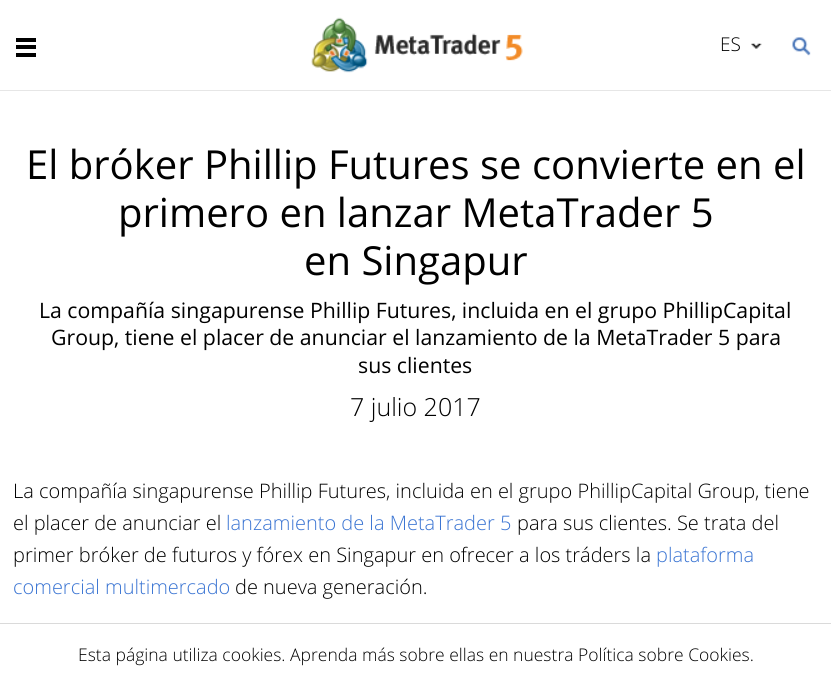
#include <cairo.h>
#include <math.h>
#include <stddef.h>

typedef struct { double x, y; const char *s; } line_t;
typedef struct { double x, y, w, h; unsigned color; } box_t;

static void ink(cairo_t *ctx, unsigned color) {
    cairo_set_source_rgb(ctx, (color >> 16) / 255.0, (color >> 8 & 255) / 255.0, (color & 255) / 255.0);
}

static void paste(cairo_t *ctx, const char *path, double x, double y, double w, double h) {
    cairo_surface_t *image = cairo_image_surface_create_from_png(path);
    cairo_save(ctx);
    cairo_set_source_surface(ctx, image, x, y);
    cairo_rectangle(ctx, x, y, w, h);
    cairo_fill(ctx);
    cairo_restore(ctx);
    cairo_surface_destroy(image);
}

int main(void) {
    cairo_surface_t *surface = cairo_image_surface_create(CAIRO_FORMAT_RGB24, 831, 686);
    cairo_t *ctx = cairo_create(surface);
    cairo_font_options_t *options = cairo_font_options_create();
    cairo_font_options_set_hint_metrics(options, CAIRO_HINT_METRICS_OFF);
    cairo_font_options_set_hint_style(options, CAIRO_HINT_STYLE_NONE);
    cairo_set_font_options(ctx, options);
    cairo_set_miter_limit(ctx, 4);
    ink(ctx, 0xFFFFFF);
    cairo_paint(ctx);
    {
        static const box_t items[] = {
            {0, 90, 831, 1, 0xE6E6E6},
            {16, 38, 20, 4, 0x000000},
            {16, 45, 20, 4, 0x000000},
            {16, 53, 20, 4, 0x000000},
        };
        for (size_t i = 0; i < sizeof items / sizeof *items; i++) {
            ink(ctx, items[i].color);
            cairo_rectangle(ctx, items[i].x, items[i].y, items[i].w, items[i].h);
            cairo_fill(ctx);
        }
    }
    paste(ctx, "media/1.png", 311, 17, 212, 56);
    cairo_select_font_face(ctx, "Open Sans Light", CAIRO_FONT_SLANT_NORMAL, CAIRO_FONT_WEIGHT_NORMAL);
    cairo_set_font_size(ctx, 19);
    cairo_move_to(ctx, 720, 51);
    cairo_show_text(ctx, "ES");
    paste(ctx, "media/2.png", 751, 43, 11, 6);
    paste(ctx, "media/3.png", 792, 37, 19, 19);
    cairo_select_font_face(ctx, "Open Sans", CAIRO_FONT_SLANT_NORMAL, CAIRO_FONT_WEIGHT_NORMAL);
    cairo_set_font_size(ctx, 40);
    {
        static const line_t items[] = {
            {26, 179, "El bróker Phillip Futures se convierte en el"},
            {118, 227, "primero en lanzar MetaTrader 5"},
            {304, 275, "en Singapur"},
        };
        for (size_t i = 0; i < sizeof items / sizeof *items; i++) {
            cairo_move_to(ctx, items[i].x, items[i].y);
            cairo_show_text(ctx, items[i].s);
        }
    }
    cairo_set_font_size(ctx, 21.25);
    {
        static const line_t items[] = {
            {39, 318, "La compañía singapurense Phillip Futures, incluida en el grupo PhillipCapital"},
            {51, 345, "Group, tiene el placer de anunciar el lanzamiento de la MetaTrader 5 para"},
            {358, 373, "sus clientes"},
        };
        for (size_t i = 0; i < sizeof items / sizeof *items; i++) {
            cairo_move_to(ctx, items[i].x, items[i].y);
            cairo_show_text(ctx, items[i].s);
        }
    }
    cairo_select_font_face(ctx, "Open Sans Light", CAIRO_FONT_SLANT_NORMAL, CAIRO_FONT_WEIGHT_NORMAL);
    cairo_set_font_size(ctx, 25);
    cairo_move_to(ctx, 350, 416);
    cairo_show_text(ctx, "7 julio 2017");
    cairo_set_font_size(ctx, 20);
    cairo_move_to(ctx, 13, 498);
    cairo_show_text(ctx, "La compañía singapurense Phillip Futures, incluida en el grupo PhillipCapital Group, tiene");
    cairo_move_to(ctx, 13, 530);
    cairo_show_text(ctx, "el placer de anunciar el");
    ink(ctx, 0x3B75D3);
    cairo_move_to(ctx, 226, 530);
    cairo_show_text(ctx, "lanzamiento de la MetaTrader 5");
    ink(ctx, 0x000000);
    cairo_move_to(ctx, 517, 530);
    cairo_show_text(ctx, "para sus clientes. Se trata del");
    cairo_move_to(ctx, 13, 562);
    cairo_show_text(ctx, "primer bróker de futuros y fórex en Singapur en ofrecer a los tráders la");
    ink(ctx, 0x3B75D3);
    cairo_move_to(ctx, 656, 562);
    cairo_show_text(ctx, "plataforma");
    cairo_move_to(ctx, 13, 594);
    cairo_show_text(ctx, "comercial multimercado");
    ink(ctx, 0x000000);
    cairo_move_to(ctx, 235, 594);
    cairo_show_text(ctx, "de nueva generación.");
    ink(ctx, 0xDADADA);
    cairo_rectangle(ctx, 0, 623, 831, 1);
    cairo_fill(ctx);
    cairo_set_font_size(ctx, 17.5);
    ink(ctx, 0x000000);
    cairo_move_to(ctx, 78, 661);
    cairo_show_text(ctx, "Esta página utiliza cookies. Aprenda más sobre ellas en nuestra Política sobre Cookies.");
    cairo_surface_write_to_png(surface, "image.png");
    cairo_font_options_destroy(options);
    cairo_destroy(ctx);
    cairo_surface_destroy(surface);
    return 0;
}
